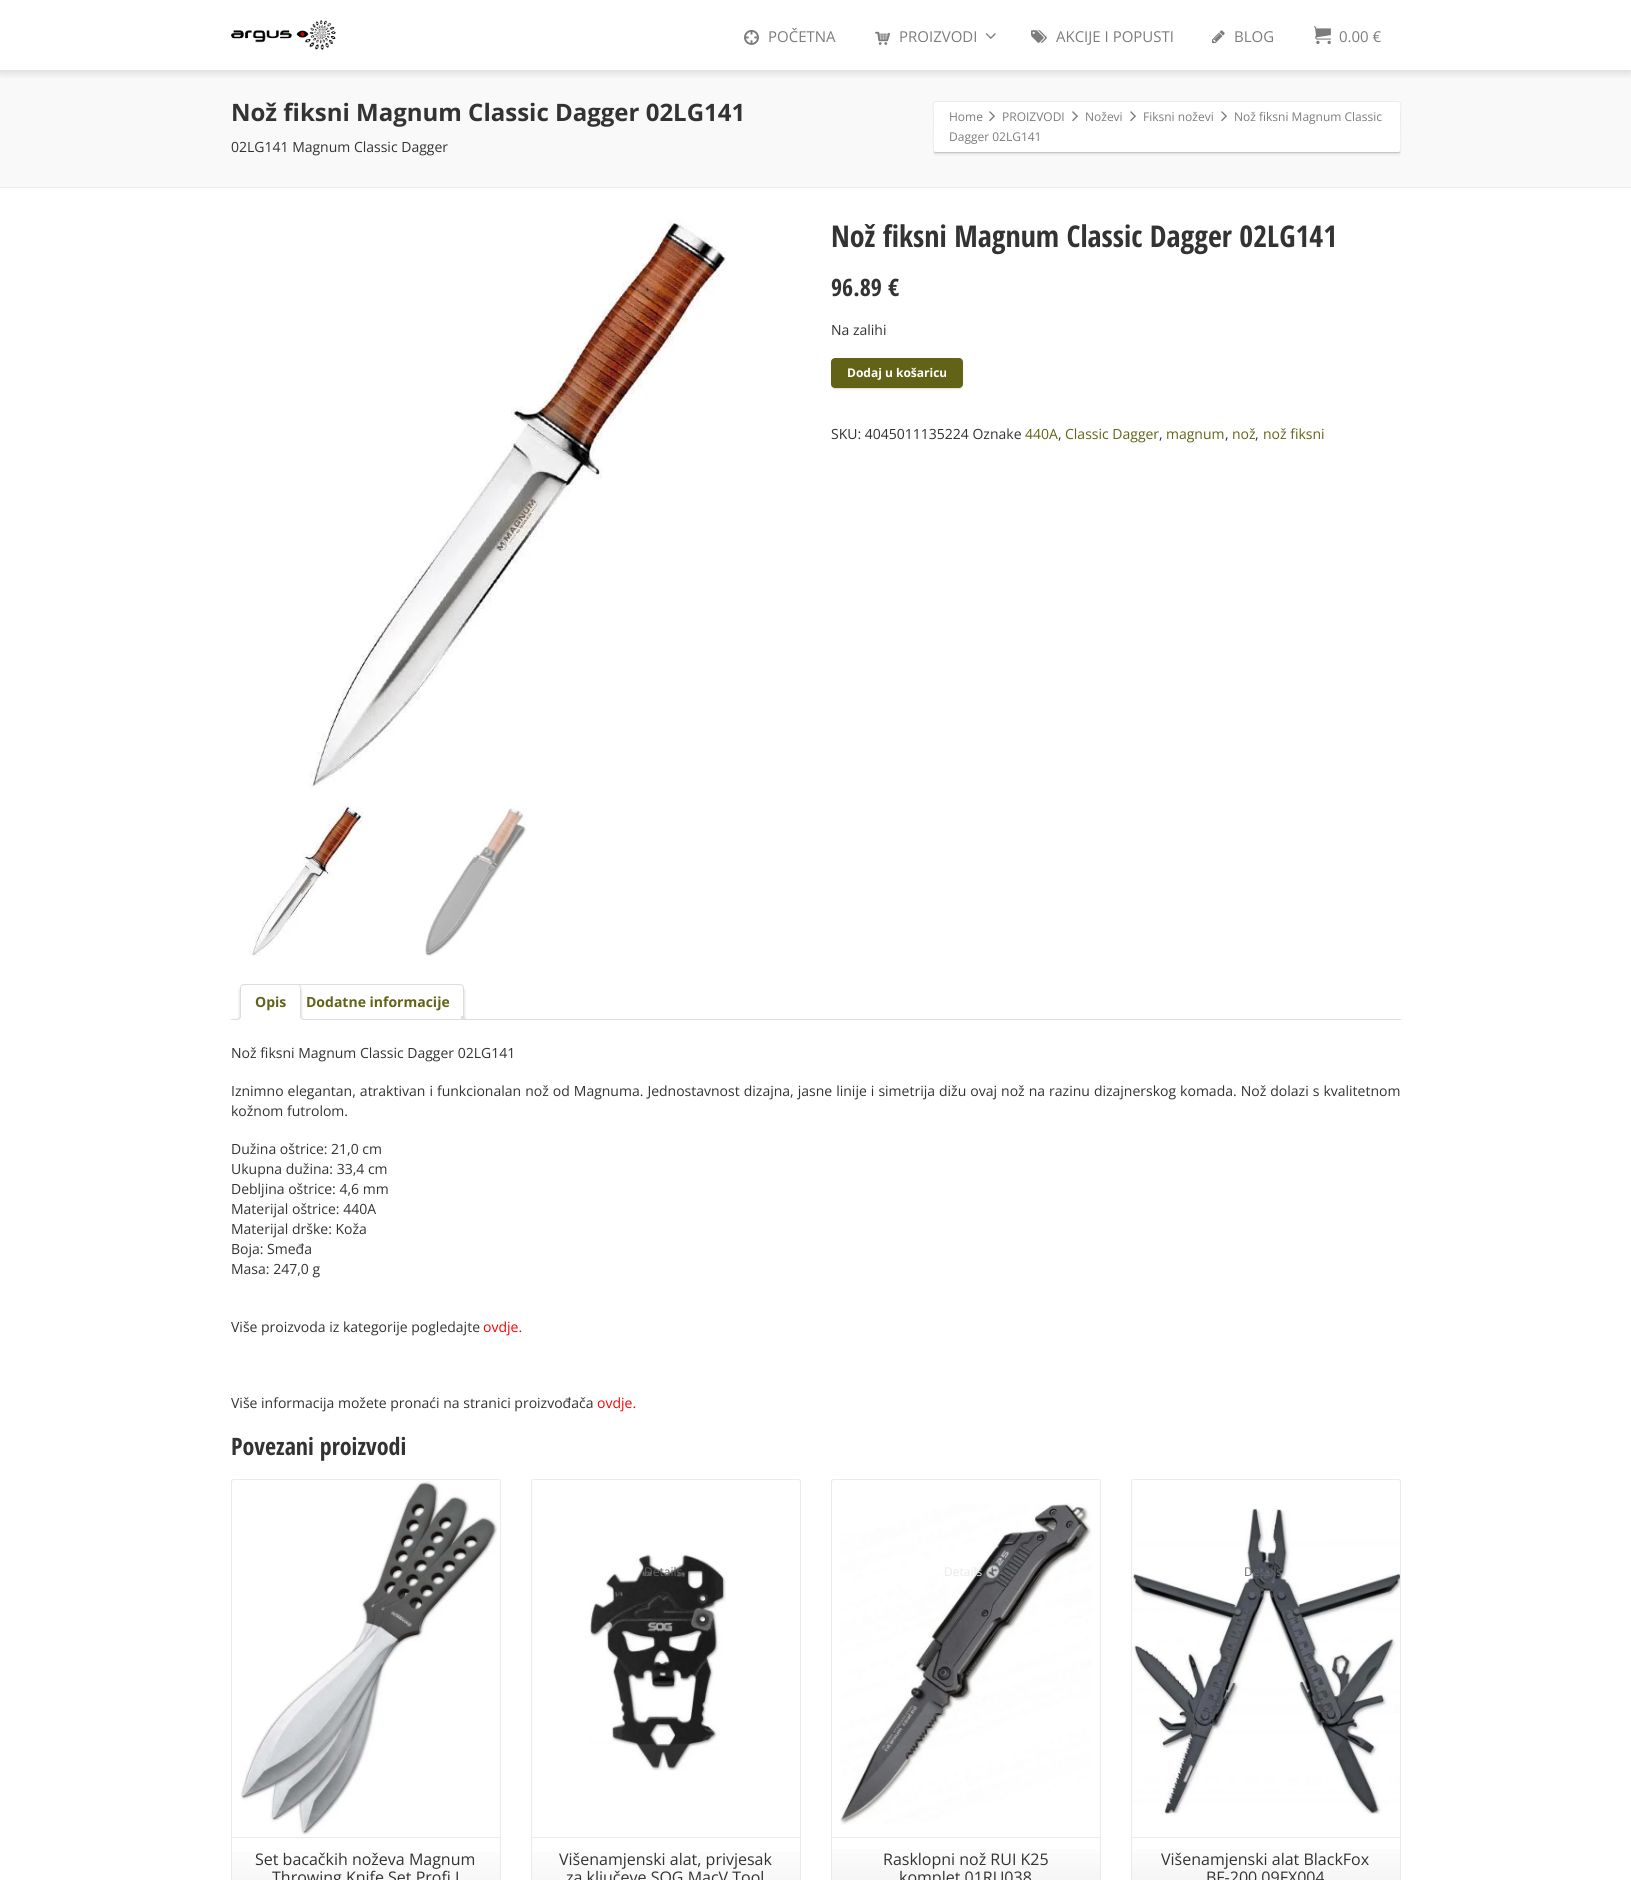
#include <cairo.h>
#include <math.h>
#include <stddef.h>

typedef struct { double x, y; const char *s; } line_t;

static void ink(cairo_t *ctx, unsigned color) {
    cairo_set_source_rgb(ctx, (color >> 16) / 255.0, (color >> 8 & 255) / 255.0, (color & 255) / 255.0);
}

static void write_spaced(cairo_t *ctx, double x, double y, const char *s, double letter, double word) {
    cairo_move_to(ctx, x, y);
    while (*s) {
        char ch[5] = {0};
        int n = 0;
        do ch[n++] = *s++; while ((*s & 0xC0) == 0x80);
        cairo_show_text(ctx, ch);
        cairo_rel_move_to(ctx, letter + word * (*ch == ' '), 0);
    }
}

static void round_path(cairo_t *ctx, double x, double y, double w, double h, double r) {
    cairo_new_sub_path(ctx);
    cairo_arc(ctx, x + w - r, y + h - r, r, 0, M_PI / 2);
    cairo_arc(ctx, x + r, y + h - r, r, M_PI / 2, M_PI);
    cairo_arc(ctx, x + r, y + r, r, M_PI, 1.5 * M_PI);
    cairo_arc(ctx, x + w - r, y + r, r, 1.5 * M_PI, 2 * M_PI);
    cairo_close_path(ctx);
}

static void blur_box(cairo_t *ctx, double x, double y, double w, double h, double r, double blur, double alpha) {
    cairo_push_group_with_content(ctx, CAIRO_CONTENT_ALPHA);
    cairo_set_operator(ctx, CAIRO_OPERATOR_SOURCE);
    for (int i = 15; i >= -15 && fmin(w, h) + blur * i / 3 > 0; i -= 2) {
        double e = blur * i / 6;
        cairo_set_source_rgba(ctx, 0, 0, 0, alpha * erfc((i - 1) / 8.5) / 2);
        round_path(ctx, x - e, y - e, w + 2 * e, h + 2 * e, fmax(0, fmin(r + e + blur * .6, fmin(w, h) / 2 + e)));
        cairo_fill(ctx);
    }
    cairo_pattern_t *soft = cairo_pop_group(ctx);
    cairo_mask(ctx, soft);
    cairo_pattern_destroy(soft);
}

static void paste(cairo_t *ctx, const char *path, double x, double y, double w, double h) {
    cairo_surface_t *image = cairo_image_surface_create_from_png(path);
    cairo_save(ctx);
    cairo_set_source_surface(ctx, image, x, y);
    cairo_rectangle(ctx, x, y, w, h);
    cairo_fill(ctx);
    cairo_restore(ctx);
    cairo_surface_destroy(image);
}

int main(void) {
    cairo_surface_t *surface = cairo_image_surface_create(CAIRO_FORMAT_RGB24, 1631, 1880);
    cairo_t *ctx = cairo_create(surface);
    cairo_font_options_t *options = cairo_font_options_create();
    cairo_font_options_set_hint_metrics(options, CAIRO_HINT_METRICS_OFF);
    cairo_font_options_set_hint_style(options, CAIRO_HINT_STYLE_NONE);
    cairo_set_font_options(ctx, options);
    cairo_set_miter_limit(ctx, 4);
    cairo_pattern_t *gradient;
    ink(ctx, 0xFFFFFF);
    cairo_paint(ctx);
    ink(ctx, 0xF9F9F9);
    cairo_rectangle(ctx, 0, 70, 1631, 117);
    cairo_fill(ctx);
    cairo_save(ctx);
    cairo_rectangle(ctx, 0, 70, 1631, 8);
    cairo_clip(ctx);
    ink(ctx, 0x000000);
    blur_box(ctx, 0, 2, 1631, 70, 0, 5, 0.15);
    cairo_restore(ctx);
    paste(ctx, "media/1.png", 231, 20, 105, 30);
    paste(ctx, "media/2.png", 744, 29, 15, 16);
    cairo_select_font_face(ctx, "Open Sans", CAIRO_FONT_SLANT_NORMAL, CAIRO_FONT_WEIGHT_NORMAL);
    cairo_set_font_size(ctx, 15);
    ink(ctx, 0x7C7C7C);
    cairo_move_to(ctx, 768, 42);
    cairo_show_text(ctx, "POČETNA");
    paste(ctx, "media/3.png", 875, 31, 15, 14);
    cairo_move_to(ctx, 899, 42);
    cairo_show_text(ctx, "PROIZVODI");
    paste(ctx, "media/4.png", 985, 33, 11, 6);
    paste(ctx, "media/5.png", 1031, 30, 16, 13);
    cairo_move_to(ctx, 1056, 42);
    cairo_show_text(ctx, "AKCIJE I POPUSTI");
    paste(ctx, "media/6.png", 1212, 30, 13, 14);
    cairo_move_to(ctx, 1234, 42);
    cairo_show_text(ctx, "BLOG");
    paste(ctx, "media/7.png", 1314, 26, 17, 19);
    cairo_move_to(ctx, 1339, 42);
    cairo_show_text(ctx, "0.00 €");
    ink(ctx, 0xEBEBEB);
    cairo_rectangle(ctx, 0, 187, 1631, 1);
    cairo_fill(ctx);
    cairo_select_font_face(ctx, "Open Sans", CAIRO_FONT_SLANT_NORMAL, CAIRO_FONT_WEIGHT_BOLD);
    cairo_set_font_size(ctx, 24);
    ink(ctx, 0x333333);
    cairo_move_to(ctx, 231, 121);
    cairo_show_text(ctx, "Nož fiksni Magnum Classic Dagger 02LG141");
    cairo_select_font_face(ctx, "Open Sans", CAIRO_FONT_SLANT_NORMAL, CAIRO_FONT_WEIGHT_NORMAL);
    cairo_set_font_size(ctx, 14);
    cairo_move_to(ctx, 231, 152);
    cairo_show_text(ctx, "02LG141 Magnum Classic Dagger");
    ink(ctx, 0xE8E8E8);
    cairo_new_path(ctx);
    cairo_move_to(ctx, 933, 150);
    cairo_line_to(ctx, 933, 151);
    cairo_curve_to(ctx, 933, 153, 934, 154, 936, 154);
    cairo_line_to(ctx, 1398, 154);
    cairo_curve_to(ctx, 1400, 154, 1401, 153, 1401, 151);
    cairo_line_to(ctx, 1401, 150);
    cairo_curve_to(ctx, 1401, 152, 1400, 153, 1398, 153);
    cairo_line_to(ctx, 936, 153);
    cairo_curve_to(ctx, 934, 153, 933, 152, 933, 150);
    cairo_close_path(ctx);
    cairo_fill(ctx);
    cairo_set_source_rgba(ctx, 0, 0, 0, 0.03);
    cairo_new_path(ctx);
    cairo_move_to(ctx, 933, 150);
    cairo_line_to(ctx, 933, 153);
    cairo_curve_to(ctx, 933, 155, 934, 156, 936, 156);
    cairo_line_to(ctx, 1398, 156);
    cairo_curve_to(ctx, 1400, 156, 1401, 155, 1401, 153);
    cairo_line_to(ctx, 1401, 150);
    cairo_curve_to(ctx, 1401, 152, 1400, 153, 1398, 153);
    cairo_line_to(ctx, 936, 153);
    cairo_curve_to(ctx, 934, 153, 933, 152, 933, 150);
    cairo_close_path(ctx);
    cairo_fill(ctx);
    ink(ctx, 0xFFFFFF);
    round_path(ctx, 933, 101, 468, 52, 3);
    cairo_fill(ctx);
    cairo_new_path(ctx);
    cairo_move_to(ctx, 1400, 152);
    cairo_line_to(ctx, 1398, 152.5);
    cairo_line_to(ctx, 936, 152.5);
    cairo_line_to(ctx, 934, 152);
    cairo_set_source_rgba(ctx, 0, 0, 0, 0.22);
    cairo_set_line_width(ctx, 1);
    cairo_stroke(ctx);
    cairo_new_path(ctx);
    cairo_move_to(ctx, 934, 152);
    cairo_curve_to(ctx, 932.5, 150, 933.5, 123.5, 933.5, 119.5);
    cairo_line_to(ctx, 933.5, 111.5);
    cairo_curve_to(ctx, 933.5, 111, 931.5, 101.5, 936, 101.5);
    cairo_line_to(ctx, 1398, 101.5);
    cairo_curve_to(ctx, 1402.5, 101.5, 1400.5, 111, 1400.5, 111.5);
    cairo_line_to(ctx, 1400.5, 119.5);
    cairo_curve_to(ctx, 1400.5, 123.5, 1401.5, 150, 1400, 152);
    ink(ctx, 0xEBEBEB);
    cairo_stroke(ctx);
    cairo_set_font_size(ctx, 12);
    ink(ctx, 0x7C7C7C);
    cairo_move_to(ctx, 949, 121);
    cairo_show_text(ctx, "Home");
    paste(ctx, "media/8.png", 989, 111, 6, 11);
    cairo_move_to(ctx, 1002, 121);
    cairo_show_text(ctx, "PROIZVODI");
    paste(ctx, "media/8.png", 1072, 111, 6, 11);
    cairo_move_to(ctx, 1085, 121);
    cairo_show_text(ctx, "Noževi");
    paste(ctx, "media/8.png", 1130, 111, 6, 11);
    cairo_move_to(ctx, 1143, 121);
    cairo_show_text(ctx, "Fiksni noževi");
    paste(ctx, "media/8.png", 1221, 111, 6, 11);
    cairo_move_to(ctx, 1234, 121);
    cairo_show_text(ctx, "Nož fiksni Magnum Classic");
    cairo_move_to(ctx, 949, 141);
    cairo_show_text(ctx, "Dagger 02LG141");
    paste(ctx, "media/9.png", 309, 219, 417, 569);
    paste(ctx, "media/10.png", 249, 806, 114, 150);
    paste(ctx, "media/11.png", 423, 807, 104, 149);
    cairo_select_font_face(ctx, "Open Sans Condensed", CAIRO_FONT_SLANT_NORMAL, CAIRO_FONT_WEIGHT_BOLD);
    cairo_set_font_size(ctx, 30);
    ink(ctx, 0x333333);
    cairo_move_to(ctx, 831, 247);
    cairo_show_text(ctx, "Nož fiksni Magnum Classic Dagger 02LG141");
    cairo_set_font_size(ctx, 24);
    cairo_move_to(ctx, 831, 296);
    cairo_show_text(ctx, "96.89");
    cairo_move_to(ctx, 888, 296);
    cairo_show_text(ctx, "€");
    cairo_select_font_face(ctx, "Open Sans", CAIRO_FONT_SLANT_NORMAL, CAIRO_FONT_WEIGHT_NORMAL);
    cairo_set_font_size(ctx, 14);
    cairo_move_to(ctx, 831, 335);
    cairo_show_text(ctx, "Na zalihi");
    ink(ctx, 0xEBEBEB);
    cairo_new_path(ctx);
    cairo_move_to(ctx, 831, 384);
    cairo_line_to(ctx, 831, 385);
    cairo_curve_to(ctx, 831, 387, 833, 389, 835, 389);
    cairo_line_to(ctx, 959, 389);
    cairo_curve_to(ctx, 961, 389, 963, 387, 963, 385);
    cairo_line_to(ctx, 963, 384);
    cairo_curve_to(ctx, 963, 386, 961, 388, 959, 388);
    cairo_line_to(ctx, 835, 388);
    cairo_curve_to(ctx, 833, 388, 831, 386, 831, 384);
    cairo_close_path(ctx);
    cairo_fill(ctx);
    ink(ctx, 0x000000);
    blur_box(ctx, 831, 360, 132, 30, 4, 1, 0.05);
    ink(ctx, 0x626317);
    round_path(ctx, 831, 358, 132, 30, 4);
    cairo_fill(ctx);
    cairo_select_font_face(ctx, "Open Sans", CAIRO_FONT_SLANT_NORMAL, CAIRO_FONT_WEIGHT_BOLD);
    cairo_set_font_size(ctx, 12);
    ink(ctx, 0xFFFFFF);
    cairo_move_to(ctx, 847, 377);
    cairo_show_text(ctx, "Dodaj u košaricu");
    cairo_select_font_face(ctx, "Open Sans", CAIRO_FONT_SLANT_NORMAL, CAIRO_FONT_WEIGHT_NORMAL);
    cairo_set_font_size(ctx, 14);
    ink(ctx, 0x333333);
    cairo_move_to(ctx, 831, 439);
    cairo_show_text(ctx, "SKU: 4045011135224 Oznake");
    ink(ctx, 0x626317);
    cairo_move_to(ctx, 1025, 439);
    cairo_show_text(ctx, "440A");
    ink(ctx, 0x333333);
    cairo_move_to(ctx, 1058, 439);
    cairo_show_text(ctx, ",");
    ink(ctx, 0x626317);
    cairo_move_to(ctx, 1065, 439);
    cairo_show_text(ctx, "Classic Dagger");
    ink(ctx, 0x333333);
    cairo_move_to(ctx, 1159, 439);
    cairo_show_text(ctx, ",");
    ink(ctx, 0x626317);
    cairo_move_to(ctx, 1166, 439);
    cairo_show_text(ctx, "magnum");
    ink(ctx, 0x333333);
    cairo_move_to(ctx, 1225, 439);
    cairo_show_text(ctx, ",");
    ink(ctx, 0x626317);
    cairo_move_to(ctx, 1232, 439);
    cairo_show_text(ctx, "nož");
    ink(ctx, 0x333333);
    cairo_move_to(ctx, 1255, 439);
    cairo_show_text(ctx, ",");
    ink(ctx, 0x626317);
    cairo_move_to(ctx, 1263, 439);
    cairo_show_text(ctx, "nož fiksni");
    cairo_save(ctx);
    cairo_rectangle(ctx, 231, 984, 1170, 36);
    cairo_clip(ctx);
    cairo_rectangle(ctx, 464, 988, 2, 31);
    cairo_clip(ctx);
    ink(ctx, 0x000000);
    blur_box(ctx, 291, 987, 173, 36, 4, 1.5, 0.2);
    cairo_restore(ctx);
    cairo_new_path(ctx);
    cairo_move_to(ctx, 295, 984.5);
    cairo_line_to(ctx, 460, 984.5);
    cairo_curve_to(ctx, 462, 984.5, 463.5, 986, 463.5, 988);
    cairo_line_to(ctx, 463.5, 1019.5);
    cairo_line_to(ctx, 291.5, 1019.5);
    cairo_line_to(ctx, 291.5, 988);
    cairo_curve_to(ctx, 291.5, 986, 293, 984.5, 295, 984.5);
    cairo_close_path(ctx);
    ink(ctx, 0xDFDBDF);
    cairo_stroke(ctx);
    cairo_save(ctx);
    cairo_rectangle(ctx, 231, 984, 1170, 36);
    cairo_clip(ctx);
    cairo_new_path(ctx);
    cairo_move_to(ctx, 461, 1016);
    cairo_curve_to(ctx, 461, 1021, 462, 1022, 467, 1022);
    cairo_line_to(ctx, 467, 1020);
    cairo_curve_to(ctx, 465, 1020, 463, 1018, 463, 1016);
    cairo_close_path(ctx);
    cairo_fill(ctx);
    cairo_restore(ctx);
    cairo_set_fill_rule(ctx, CAIRO_FILL_RULE_EVEN_ODD);
    cairo_new_path(ctx);
    cairo_move_to(ctx, 463, 1014);
    cairo_line_to(ctx, 469, 1014);
    cairo_line_to(ctx, 469, 1020);
    cairo_curve_to(ctx, 466.5, 1020, 463, 1019.5, 463, 1016);
    cairo_close_path(ctx);
    cairo_move_to(ctx, 464, 1014);
    cairo_line_to(ctx, 469, 1014);
    cairo_line_to(ctx, 469, 1019);
    cairo_curve_to(ctx, 467, 1019, 464, 1019, 464, 1016);
    cairo_close_path(ctx);
    cairo_fill(ctx);
    cairo_rectangle(ctx, 231, 1019, 1170, 1);
    cairo_fill(ctx);
    cairo_save(ctx);
    cairo_set_fill_rule(ctx, CAIRO_FILL_RULE_WINDING);
    cairo_rectangle(ctx, 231, 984, 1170, 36);
    cairo_clip(ctx);
    ink(ctx, 0x000000);
    blur_box(ctx, 240, 987, 61, 36, 4, 1.5, 0.2);
    cairo_restore(ctx);
    ink(ctx, 0xFFFFFF);
    cairo_new_path(ctx);
    cairo_move_to(ctx, 244, 984);
    cairo_line_to(ctx, 297, 984);
    cairo_curve_to(ctx, 299, 984, 301, 986, 301, 988);
    cairo_line_to(ctx, 301, 1020);
    cairo_line_to(ctx, 240, 1020);
    cairo_line_to(ctx, 240, 988);
    cairo_curve_to(ctx, 240, 986, 242, 984, 244, 984);
    cairo_close_path(ctx);
    cairo_fill(ctx);
    ink(ctx, 0xDFDBDF);
    cairo_set_fill_rule(ctx, CAIRO_FILL_RULE_WINDING);
    cairo_new_path(ctx);
    cairo_move_to(ctx, 244, 984);
    cairo_line_to(ctx, 241, 985);
    cairo_line_to(ctx, 242, 986);
    cairo_line_to(ctx, 244, 985);
    cairo_line_to(ctx, 298, 985);
    cairo_line_to(ctx, 299, 986);
    cairo_line_to(ctx, 300, 985);
    cairo_line_to(ctx, 297, 984);
    cairo_close_path(ctx);
    cairo_fill(ctx);
    cairo_new_path(ctx);
    cairo_move_to(ctx, 301, 1020);
    cairo_line_to(ctx, 301, 988);
    cairo_curve_to(ctx, 301, 987, 300.5, 986, 300, 985);
    cairo_line_to(ctx, 299, 986);
    cairo_curve_to(ctx, 300, 986, 300, 987, 300, 988);
    cairo_line_to(ctx, 300, 1019);
    cairo_close_path(ctx);
    cairo_fill(ctx);
    ink(ctx, 0xFFFFFF);
    cairo_new_path(ctx);
    cairo_move_to(ctx, 301, 1020);
    cairo_line_to(ctx, 300, 1019);
    cairo_line_to(ctx, 241, 1019);
    cairo_line_to(ctx, 240, 1020);
    cairo_close_path(ctx);
    cairo_fill(ctx);
    ink(ctx, 0xDFDBDF);
    cairo_new_path(ctx);
    cairo_move_to(ctx, 240, 1020);
    cairo_line_to(ctx, 241, 1019);
    cairo_line_to(ctx, 241, 988);
    cairo_curve_to(ctx, 241, 987, 241, 986, 242, 986);
    cairo_line_to(ctx, 241, 985);
    cairo_curve_to(ctx, 240.5, 986, 240, 987, 240, 988);
    cairo_close_path(ctx);
    cairo_fill(ctx);
    cairo_select_font_face(ctx, "Open Sans", CAIRO_FONT_SLANT_NORMAL, CAIRO_FONT_WEIGHT_BOLD);
    ink(ctx, 0x626317);
    cairo_move_to(ctx, 255, 1007);
    cairo_show_text(ctx, "Opis");
    cairo_save(ctx);
    cairo_rectangle(ctx, 231, 984, 1170, 36);
    cairo_clip(ctx);
    ink(ctx, 0xFFFFFF);
    cairo_new_path(ctx);
    cairo_move_to(ctx, 237, 1020);
    cairo_line_to(ctx, 237, 1022);
    cairo_curve_to(ctx, 242, 1022, 243, 1021, 243, 1016);
    cairo_line_to(ctx, 241, 1016);
    cairo_curve_to(ctx, 241, 1018, 239, 1020, 237, 1020);
    cairo_close_path(ctx);
    cairo_fill(ctx);
    cairo_restore(ctx);
    ink(ctx, 0xDFDBDF);
    cairo_set_fill_rule(ctx, CAIRO_FILL_RULE_EVEN_ODD);
    cairo_new_path(ctx);
    cairo_move_to(ctx, 235, 1014);
    cairo_line_to(ctx, 241, 1014);
    cairo_curve_to(ctx, 241, 1019, 240, 1020, 235, 1020);
    cairo_close_path(ctx);
    cairo_move_to(ctx, 235, 1014);
    cairo_line_to(ctx, 240, 1014);
    cairo_curve_to(ctx, 240, 1018, 239, 1019, 235, 1019);
    cairo_close_path(ctx);
    cairo_fill(ctx);
    cairo_save(ctx);
    cairo_set_fill_rule(ctx, CAIRO_FILL_RULE_WINDING);
    cairo_rectangle(ctx, 231, 984, 1170, 36);
    cairo_clip(ctx);
    ink(ctx, 0xFFFFFF);
    cairo_new_path(ctx);
    cairo_move_to(ctx, 298, 1016);
    cairo_curve_to(ctx, 298, 1021, 299, 1022, 304, 1022);
    cairo_line_to(ctx, 304, 1020);
    cairo_curve_to(ctx, 302, 1020, 300, 1018, 300, 1016);
    cairo_close_path(ctx);
    cairo_fill(ctx);
    cairo_restore(ctx);
    cairo_new_path(ctx);
    cairo_move_to(ctx, 300, 1014);
    cairo_line_to(ctx, 306, 1014);
    cairo_line_to(ctx, 306, 1020);
    cairo_curve_to(ctx, 303.5, 1020, 300, 1019.5, 300, 1016);
    cairo_close_path(ctx);
    cairo_move_to(ctx, 301, 1014);
    cairo_line_to(ctx, 306, 1014);
    cairo_line_to(ctx, 306, 1019);
    cairo_curve_to(ctx, 304, 1019, 301, 1019, 301, 1016);
    cairo_close_path(ctx);
    cairo_fill(ctx);
    ink(ctx, 0x626317);
    cairo_move_to(ctx, 306, 1007);
    cairo_show_text(ctx, "Dodatne informacije");
    cairo_select_font_face(ctx, "Open Sans", CAIRO_FONT_SLANT_NORMAL, CAIRO_FONT_WEIGHT_NORMAL);
    ink(ctx, 0x333333);
    cairo_move_to(ctx, 231, 1058);
    cairo_show_text(ctx, "Nož fiksni Magnum Classic Dagger 02LG141");
    write_spaced(ctx, 231, 1096, "Iznimno elegantan, atraktivan i funkcionalan nož od Magnuma. Jednostavnost dizajna, jasne linije i simetrija dižu ovaj nož na razinu dizajnerskog komada. Nož dolazi s kvalitetnom", 0, 0.4);
    {
        static const line_t items[] = {
            {231, 1116, "kožnom futrolom."},
            {231, 1154, "Dužina oštrice: 21,0 cm"},
            {231, 1174, "Ukupna dužina: 33,4 cm"},
            {231, 1194, "Debljina oštrice: 4,6 mm"},
            {231, 1214, "Materijal oštrice: 440A"},
            {231, 1234, "Materijal drške: Koža"},
            {231, 1254, "Boja: Smeđa"},
            {231, 1274, "Masa: 247,0 g"},
            {231, 1332, "Više proizvoda iz kategorije pogledajte"},
        };
        for (size_t i = 0; i < sizeof items / sizeof *items; i++) {
            cairo_move_to(ctx, items[i].x, items[i].y);
            cairo_show_text(ctx, items[i].s);
        }
    }
    ink(ctx, 0xFF0000);
    cairo_move_to(ctx, 483, 1332);
    cairo_show_text(ctx, "ovdje.");
    ink(ctx, 0x333333);
    cairo_move_to(ctx, 231, 1408);
    cairo_show_text(ctx, "Više informacija možete pronaći na stranici proizvođača");
    ink(ctx, 0xFF0000);
    cairo_move_to(ctx, 597, 1408);
    cairo_show_text(ctx, "ovdje.");
    cairo_select_font_face(ctx, "Open Sans Condensed", CAIRO_FONT_SLANT_NORMAL, CAIRO_FONT_WEIGHT_BOLD);
    cairo_set_font_size(ctx, 24);
    ink(ctx, 0x333333);
    cairo_move_to(ctx, 231, 1455);
    cairo_show_text(ctx, "Povezani proizvodi");
    cairo_new_path(ctx);
    cairo_move_to(ctx, 232, 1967);
    cairo_line_to(ctx, 231.5, 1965);
    cairo_line_to(ctx, 231.5, 1482);
    cairo_line_to(ctx, 232, 1480);
    cairo_line_to(ctx, 234, 1479.5);
    cairo_line_to(ctx, 498, 1479.5);
    cairo_line_to(ctx, 500, 1480);
    cairo_line_to(ctx, 500.5, 1482);
    cairo_line_to(ctx, 500.5, 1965);
    cairo_line_to(ctx, 500, 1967);
    ink(ctx, 0xEBEBEB);
    cairo_stroke(ctx);
    cairo_rectangle(ctx, 232, 1837, 268, 1);
    cairo_fill(ctx);
    paste(ctx, "media/12.png", 240, 1481, 258, 354);
    gradient = cairo_pattern_create_linear(366, 1838, 366, 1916);
    cairo_pattern_add_color_stop_rgba(gradient, 0, 1, 1, 1, 1);
    cairo_pattern_add_color_stop_rgba(gradient, 1, 0.945, 0.945, 0.945, 1);
    cairo_set_source(ctx, gradient);
    cairo_pattern_destroy(gradient);
    cairo_rectangle(ctx, 232, 1852, 268, 28);
    cairo_fill(ctx);
    cairo_select_font_face(ctx, "Open Sans", CAIRO_FONT_SLANT_NORMAL, CAIRO_FONT_WEIGHT_NORMAL);
    cairo_set_font_size(ctx, 16);
    ink(ctx, 0x333333);
    cairo_move_to(ctx, 255, 1865);
    cairo_show_text(ctx, "Set bacačkih noževa Magnum");
    cairo_move_to(ctx, 272, 1883);
    cairo_show_text(ctx, "Throwing Knife Set Profi I");
    cairo_new_path(ctx);
    cairo_move_to(ctx, 532, 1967);
    cairo_line_to(ctx, 531.5, 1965);
    cairo_line_to(ctx, 531.5, 1482);
    cairo_line_to(ctx, 532, 1480);
    cairo_line_to(ctx, 534, 1479.5);
    cairo_line_to(ctx, 798, 1479.5);
    cairo_line_to(ctx, 800, 1480);
    cairo_line_to(ctx, 800.5, 1482);
    cairo_line_to(ctx, 800.5, 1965);
    cairo_line_to(ctx, 800, 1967);
    ink(ctx, 0xEBEBEB);
    cairo_stroke(ctx);
    cairo_rectangle(ctx, 532, 1837, 268, 1);
    cairo_fill(ctx);
    paste(ctx, "media/13.png", 589, 1553, 137, 218);
    cairo_set_font_size(ctx, 12);
    ink(ctx, 0x616161);
    cairo_move_to(ctx, 644, 1576);
    cairo_show_text(ctx, "Details");
    gradient = cairo_pattern_create_linear(666, 1838, 666, 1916);
    cairo_pattern_add_color_stop_rgba(gradient, 0, 1, 1, 1, 1);
    cairo_pattern_add_color_stop_rgba(gradient, 1, 0.945, 0.945, 0.945, 1);
    cairo_set_source(ctx, gradient);
    cairo_pattern_destroy(gradient);
    cairo_rectangle(ctx, 532, 1852, 268, 28);
    cairo_fill(ctx);
    cairo_set_font_size(ctx, 16);
    ink(ctx, 0x333333);
    cairo_move_to(ctx, 559, 1865);
    cairo_show_text(ctx, "Višenamjenski alat, privjesak");
    cairo_move_to(ctx, 566, 1883);
    cairo_show_text(ctx, "za ključeve SOG MacV Tool");
    cairo_new_path(ctx);
    cairo_move_to(ctx, 832, 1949);
    cairo_line_to(ctx, 831.5, 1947);
    cairo_line_to(ctx, 831.5, 1482);
    cairo_line_to(ctx, 832, 1480);
    cairo_line_to(ctx, 834, 1479.5);
    cairo_line_to(ctx, 1098, 1479.5);
    cairo_line_to(ctx, 1100, 1480);
    cairo_line_to(ctx, 1100.5, 1482);
    cairo_line_to(ctx, 1100.5, 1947);
    cairo_line_to(ctx, 1100, 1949);
    ink(ctx, 0xEBEBEB);
    cairo_stroke(ctx);
    cairo_rectangle(ctx, 832, 1837, 268, 1);
    cairo_fill(ctx);
    paste(ctx, "media/14.png", 840, 1503, 252, 322);
    cairo_set_font_size(ctx, 12);
    ink(ctx, 0xE7E7E7);
    cairo_move_to(ctx, 944, 1576);
    cairo_show_text(ctx, "Details");
    gradient = cairo_pattern_create_linear(966, 1838, 966, 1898);
    cairo_pattern_add_color_stop_rgba(gradient, 0, 1, 1, 1, 1);
    cairo_pattern_add_color_stop_rgba(gradient, 1, 0.945, 0.945, 0.945, 1);
    cairo_set_source(ctx, gradient);
    cairo_pattern_destroy(gradient);
    cairo_rectangle(ctx, 832, 1849, 268, 31);
    cairo_fill(ctx);
    cairo_set_font_size(ctx, 16);
    ink(ctx, 0x333333);
    cairo_move_to(ctx, 883, 1865);
    cairo_show_text(ctx, "Rasklopni nož RUI K25");
    cairo_move_to(ctx, 899, 1883);
    cairo_show_text(ctx, "komplet 01RU038");
    cairo_new_path(ctx);
    cairo_move_to(ctx, 1132, 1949);
    cairo_line_to(ctx, 1131.5, 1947);
    cairo_line_to(ctx, 1131.5, 1482);
    cairo_line_to(ctx, 1132, 1480);
    cairo_line_to(ctx, 1134, 1479.5);
    cairo_line_to(ctx, 1398, 1479.5);
    cairo_line_to(ctx, 1400, 1480);
    cairo_line_to(ctx, 1400.5, 1482);
    cairo_line_to(ctx, 1400.5, 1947);
    cairo_line_to(ctx, 1400, 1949);
    ink(ctx, 0xEBEBEB);
    cairo_stroke(ctx);
    cairo_rectangle(ctx, 1132, 1837, 268, 1);
    cairo_fill(ctx);
    paste(ctx, "media/15.png", 1132, 1508, 268, 307);
    cairo_set_font_size(ctx, 12);
    ink(ctx, 0x66696E);
    cairo_move_to(ctx, 1244, 1576);
    cairo_show_text(ctx, "Details");
    gradient = cairo_pattern_create_linear(1266, 1838, 1266, 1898);
    cairo_pattern_add_color_stop_rgba(gradient, 0, 1, 1, 1, 1);
    cairo_pattern_add_color_stop_rgba(gradient, 1, 0.945, 0.945, 0.945, 1);
    cairo_set_source(ctx, gradient);
    cairo_pattern_destroy(gradient);
    cairo_rectangle(ctx, 1132, 1849, 268, 31);
    cairo_fill(ctx);
    cairo_set_font_size(ctx, 16);
    ink(ctx, 0x333333);
    cairo_move_to(ctx, 1161, 1865);
    cairo_show_text(ctx, "Višenamjenski alat BlackFox");
    cairo_move_to(ctx, 1206, 1883);
    cairo_show_text(ctx, "BF-200 09FX004");
    cairo_surface_write_to_png(surface, "image.png");
    cairo_font_options_destroy(options);
    cairo_destroy(ctx);
    cairo_surface_destroy(surface);
    return 0;
}
